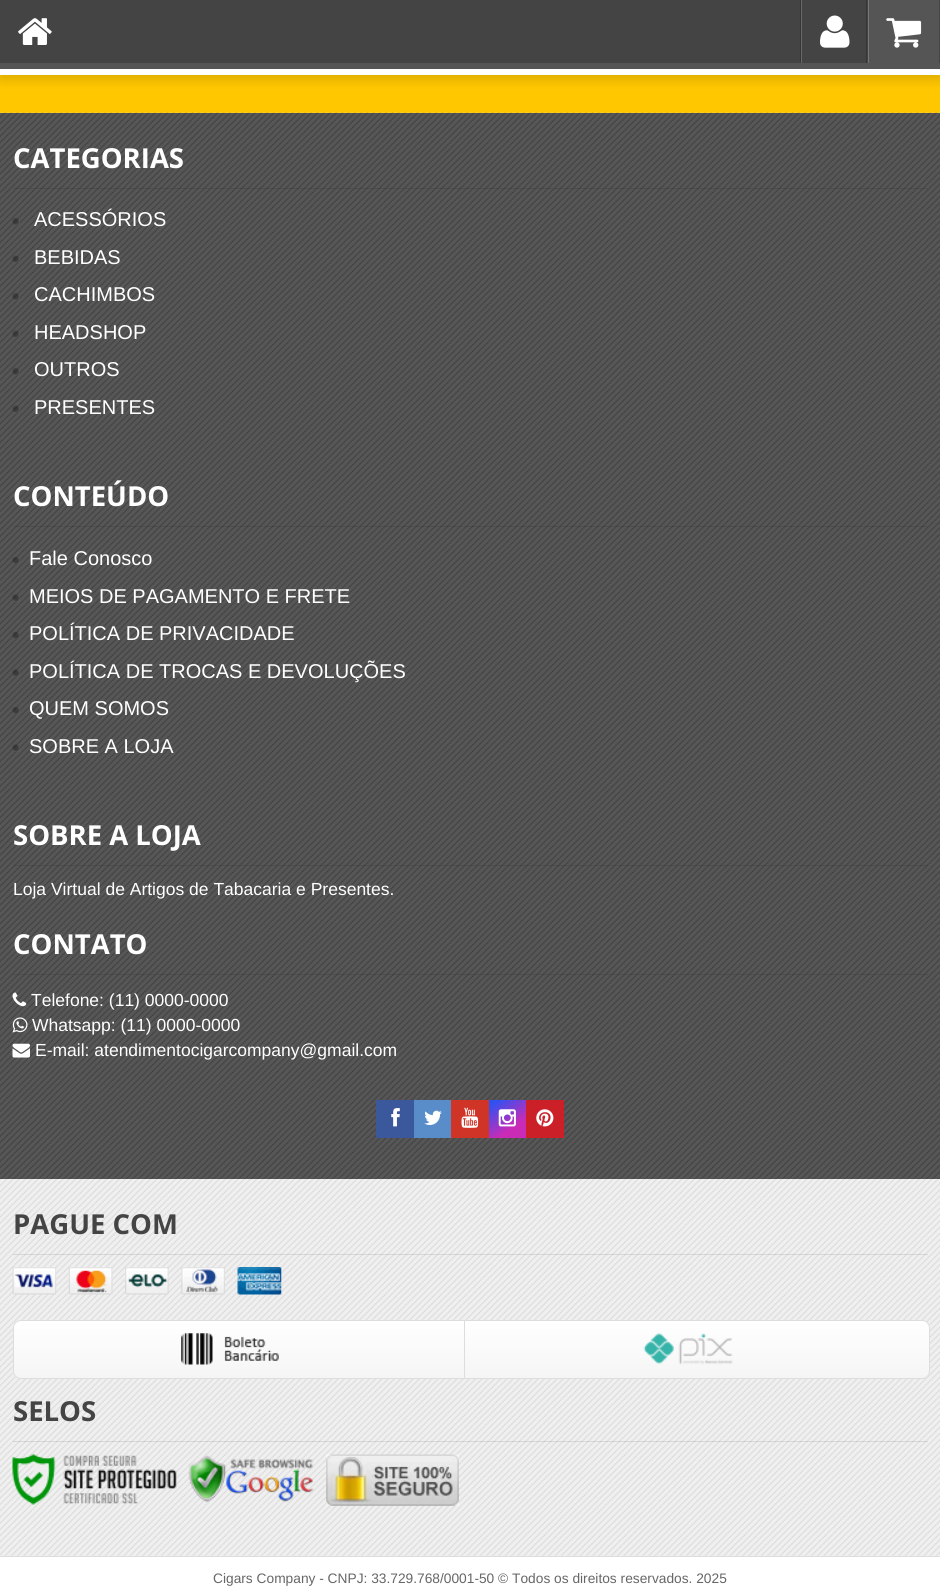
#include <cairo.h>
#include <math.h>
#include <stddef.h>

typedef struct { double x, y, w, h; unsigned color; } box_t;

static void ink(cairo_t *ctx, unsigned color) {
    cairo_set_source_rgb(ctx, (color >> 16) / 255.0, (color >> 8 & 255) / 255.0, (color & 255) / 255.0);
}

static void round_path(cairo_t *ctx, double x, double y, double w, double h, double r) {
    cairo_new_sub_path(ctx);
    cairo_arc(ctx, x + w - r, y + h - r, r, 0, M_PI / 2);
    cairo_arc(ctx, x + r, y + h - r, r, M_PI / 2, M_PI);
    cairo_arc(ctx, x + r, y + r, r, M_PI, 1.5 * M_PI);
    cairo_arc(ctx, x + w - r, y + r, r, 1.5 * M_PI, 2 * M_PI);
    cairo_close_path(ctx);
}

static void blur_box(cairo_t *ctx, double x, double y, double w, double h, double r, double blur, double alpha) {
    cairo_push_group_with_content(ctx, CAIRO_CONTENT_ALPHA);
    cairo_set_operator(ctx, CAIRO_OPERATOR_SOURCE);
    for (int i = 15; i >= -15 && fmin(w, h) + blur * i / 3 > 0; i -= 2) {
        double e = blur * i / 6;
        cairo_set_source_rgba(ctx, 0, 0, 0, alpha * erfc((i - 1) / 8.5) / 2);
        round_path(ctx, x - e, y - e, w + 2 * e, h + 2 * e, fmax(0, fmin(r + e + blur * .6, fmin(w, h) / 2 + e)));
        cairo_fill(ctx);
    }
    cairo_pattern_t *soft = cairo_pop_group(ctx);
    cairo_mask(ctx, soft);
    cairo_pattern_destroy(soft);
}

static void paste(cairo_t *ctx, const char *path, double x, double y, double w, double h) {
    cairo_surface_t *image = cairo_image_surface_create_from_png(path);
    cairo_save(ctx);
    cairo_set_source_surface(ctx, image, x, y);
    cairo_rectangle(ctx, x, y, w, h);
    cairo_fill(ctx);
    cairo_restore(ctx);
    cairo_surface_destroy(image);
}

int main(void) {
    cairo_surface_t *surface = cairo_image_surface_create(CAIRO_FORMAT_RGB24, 940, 1592);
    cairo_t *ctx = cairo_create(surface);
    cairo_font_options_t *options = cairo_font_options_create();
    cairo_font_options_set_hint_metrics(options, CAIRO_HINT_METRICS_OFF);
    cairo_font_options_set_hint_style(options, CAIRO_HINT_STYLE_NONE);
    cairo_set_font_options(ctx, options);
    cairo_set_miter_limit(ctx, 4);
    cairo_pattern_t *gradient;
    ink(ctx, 0xFFC700);
    cairo_paint(ctx);
    ink(ctx, 0x000000);
    blur_box(ctx, 0, -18, 940, 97, 0, 6, 0.15);
    {
        static const box_t items[] = {
            {0, 69, 940, 6, 0xFFFFFF},
            {0, 0, 868, 63, 0x444444},
            {0, 63, 940, 6, 0x555555},
        };
        for (size_t i = 0; i < sizeof items / sizeof *items; i++) {
            ink(ctx, items[i].color);
            cairo_rectangle(ctx, items[i].x, items[i].y, items[i].w, items[i].h);
            cairo_fill(ctx);
        }
    }
    paste(ctx, "media/1.png", 18, 18, 34, 27);
    {
        static const box_t items[] = {
            {800, 0, 1, 63, 0x363636},
            {866, 0, 1, 63, 0x363636},
            {801, 0, 1, 63, 0x696969},
        };
        for (size_t i = 0; i < sizeof items / sizeof *items; i++) {
            ink(ctx, items[i].color);
            cairo_rectangle(ctx, items[i].x, items[i].y, items[i].w, items[i].h);
            cairo_fill(ctx);
        }
    }
    paste(ctx, "media/2.png", 820, 15, 30, 33);
    {
        static const box_t items[] = {
            {869, 0, 70, 63, 0x555555},
            {939, 0, 1, 63, 0x444444},
            {868, 0, 1, 63, 0x777777},
        };
        for (size_t i = 0; i < sizeof items / sizeof *items; i++) {
            ink(ctx, items[i].color);
            cairo_rectangle(ctx, items[i].x, items[i].y, items[i].w, items[i].h);
            cairo_fill(ctx);
        }
    }
    paste(ctx, "media/3.png", 886, 18, 36, 30);
    ink(ctx, 0x444444);
    cairo_rectangle(ctx, 0, 113, 940, 1066);
    cairo_fill(ctx);
    paste(ctx, "media/4.png", 0, 112, 940, 1067);
    cairo_set_source_rgba(ctx, 0, 0, 0, 0.1);
    cairo_rectangle(ctx, 13, 188, 915, 1);
    cairo_fill(ctx);
    cairo_select_font_face(ctx, "Open Sans", CAIRO_FONT_SLANT_NORMAL, CAIRO_FONT_WEIGHT_BOLD);
    cairo_set_font_size(ctx, 27.5);
    ink(ctx, 0xFFFFFF);
    cairo_move_to(ctx, 13, 168);
    cairo_show_text(ctx, "CATEGORIAS");
    paste(ctx, "media/5.png", 12, 218, 8, 8);
    cairo_select_font_face(ctx, "Liberation Sans", CAIRO_FONT_SLANT_NORMAL, CAIRO_FONT_WEIGHT_NORMAL);
    cairo_set_font_size(ctx, 20);
    cairo_move_to(ctx, 34, 226);
    cairo_show_text(ctx, "ACESSÓRIOS");
    paste(ctx, "media/6.png", 12, 255, 8, 8);
    cairo_move_to(ctx, 34, 264);
    cairo_show_text(ctx, "BEBIDAS");
    paste(ctx, "media/5.png", 12, 293, 8, 8);
    cairo_move_to(ctx, 34, 301);
    cairo_show_text(ctx, "CACHIMBOS");
    paste(ctx, "media/7.png", 12, 330, 8, 8);
    cairo_move_to(ctx, 34, 339);
    cairo_show_text(ctx, "HEADSHOP");
    paste(ctx, "media/5.png", 12, 368, 8, 8);
    cairo_move_to(ctx, 34, 376);
    cairo_show_text(ctx, "OUTROS");
    paste(ctx, "media/6.png", 12, 405, 8, 8);
    cairo_move_to(ctx, 34, 414);
    cairo_show_text(ctx, "PRESENTES");
    cairo_set_source_rgba(ctx, 0, 0, 0, 0.1);
    cairo_rectangle(ctx, 13, 526, 915, 1);
    cairo_fill(ctx);
    cairo_select_font_face(ctx, "Open Sans", CAIRO_FONT_SLANT_NORMAL, CAIRO_FONT_WEIGHT_BOLD);
    cairo_set_font_size(ctx, 27.5);
    ink(ctx, 0xFFFFFF);
    cairo_move_to(ctx, 13, 506);
    cairo_show_text(ctx, "CONTEÚDO");
    paste(ctx, "media/8.png", 12, 557, 8, 7);
    cairo_select_font_face(ctx, "Liberation Sans", CAIRO_FONT_SLANT_NORMAL, CAIRO_FONT_WEIGHT_NORMAL);
    cairo_set_font_size(ctx, 20);
    cairo_move_to(ctx, 29, 565);
    cairo_show_text(ctx, "Fale Conosco");
    paste(ctx, "media/9.png", 12, 594, 8, 8);
    cairo_move_to(ctx, 29, 603);
    cairo_show_text(ctx, "MEIOS DE PAGAMENTO E FRETE");
    paste(ctx, "media/8.png", 12, 632, 8, 7);
    cairo_move_to(ctx, 29, 640);
    cairo_show_text(ctx, "POLÍTICA DE PRIVACIDADE");
    paste(ctx, "media/9.png", 12, 669, 8, 8);
    cairo_move_to(ctx, 29, 678);
    cairo_show_text(ctx, "POLÍTICA DE TROCAS E DEVOLUÇÕES");
    paste(ctx, "media/8.png", 12, 707, 8, 7);
    cairo_move_to(ctx, 29, 715);
    cairo_show_text(ctx, "QUEM SOMOS");
    paste(ctx, "media/9.png", 12, 744, 8, 8);
    cairo_move_to(ctx, 29, 753);
    cairo_show_text(ctx, "SOBRE A LOJA");
    cairo_set_source_rgba(ctx, 0, 0, 0, 0.1);
    cairo_rectangle(ctx, 13, 865, 915, 1);
    cairo_fill(ctx);
    cairo_select_font_face(ctx, "Open Sans", CAIRO_FONT_SLANT_NORMAL, CAIRO_FONT_WEIGHT_BOLD);
    cairo_set_font_size(ctx, 27.5);
    ink(ctx, 0xFFFFFF);
    cairo_move_to(ctx, 13, 845);
    cairo_show_text(ctx, "SOBRE A LOJA");
    cairo_select_font_face(ctx, "Liberation Sans", CAIRO_FONT_SLANT_NORMAL, CAIRO_FONT_WEIGHT_NORMAL);
    cairo_set_font_size(ctx, 17.5);
    cairo_move_to(ctx, 13, 895);
    cairo_show_text(ctx, "Loja Virtual de Artigos de Tabacaria e Presentes.");
    cairo_set_source_rgba(ctx, 0, 0, 0, 0.1);
    cairo_rectangle(ctx, 13, 974, 915, 1);
    cairo_fill(ctx);
    cairo_select_font_face(ctx, "Open Sans", CAIRO_FONT_SLANT_NORMAL, CAIRO_FONT_WEIGHT_BOLD);
    cairo_set_font_size(ctx, 27.5);
    ink(ctx, 0xFFFFFF);
    cairo_move_to(ctx, 13, 954);
    cairo_show_text(ctx, "CONTATO");
    paste(ctx, "media/10.png", 12, 992, 15, 15);
    cairo_select_font_face(ctx, "Liberation Sans", CAIRO_FONT_SLANT_NORMAL, CAIRO_FONT_WEIGHT_NORMAL);
    cairo_set_font_size(ctx, 17.5);
    cairo_move_to(ctx, 31, 1006);
    cairo_show_text(ctx, "Telefone: (11) 0000-0000");
    paste(ctx, "media/11.png", 12, 1017, 16, 16);
    cairo_move_to(ctx, 32, 1031);
    cairo_show_text(ctx, "Whatsapp: (11) 0000-0000");
    paste(ctx, "media/12.png", 12, 1043, 18, 15);
    cairo_move_to(ctx, 35, 1056);
    cairo_show_text(ctx, "E-mail: atendimentocigarcompany@gmail.com");
    ink(ctx, 0x3A589B);
    cairo_rectangle(ctx, 376, 1100, 38, 38);
    cairo_fill(ctx);
    paste(ctx, "media/13.png", 391, 1108, 9, 19);
    ink(ctx, 0x598DCA);
    cairo_rectangle(ctx, 414, 1100, 37, 38);
    cairo_fill(ctx);
    paste(ctx, "media/14.png", 424, 1110, 18, 15);
    ink(ctx, 0xCF3427);
    cairo_rectangle(ctx, 451, 1100, 38, 38);
    cairo_fill(ctx);
    paste(ctx, "media/15.png", 461, 1107, 18, 21);
    gradient = cairo_pattern_create_linear(493, 1097, 522, 1140);
    cairo_pattern_add_color_stop_rgba(gradient, 0.1, 0.188, 0.318, 0.945, 1);
    cairo_pattern_add_color_stop_rgba(gradient, 0.7, 0.788, 0.169, 0.718, 1);
    cairo_set_source(ctx, gradient);
    cairo_pattern_destroy(gradient);
    cairo_rectangle(ctx, 489, 1100, 37, 38);
    cairo_fill(ctx);
    paste(ctx, "media/16.png", 498, 1109, 18, 18);
    ink(ctx, 0xCB2027);
    cairo_rectangle(ctx, 526, 1100, 38, 38);
    cairo_fill(ctx);
    paste(ctx, "media/17.png", 536, 1109, 18, 18);
    ink(ctx, 0xEEEEEE);
    cairo_rectangle(ctx, 0, 1179, 940, 377);
    cairo_fill(ctx);
    paste(ctx, "media/18.png", 0, 1178, 940, 378);
    cairo_set_source_rgba(ctx, 0, 0, 0, 0.1);
    cairo_rectangle(ctx, 13, 1254, 915, 1);
    cairo_fill(ctx);
    cairo_select_font_face(ctx, "Open Sans", CAIRO_FONT_SLANT_NORMAL, CAIRO_FONT_WEIGHT_BOLD);
    cairo_set_font_size(ctx, 27.5);
    ink(ctx, 0x444444);
    cairo_move_to(ctx, 13, 1234);
    cairo_show_text(ctx, "PAGUE COM");
    paste(ctx, "media/19.png", 12, 1267, 45, 28);
    paste(ctx, "media/20.png", 68, 1267, 45, 28);
    paste(ctx, "media/21.png", 125, 1267, 44, 28);
    paste(ctx, "media/22.png", 181, 1267, 44, 28);
    paste(ctx, "media/23.png", 237, 1267, 45, 28);
    cairo_save(ctx);
    round_path(ctx, 13, 1320, 917, 59, 8);
    cairo_clip(ctx);
    gradient = cairo_pattern_create_linear(471, 1321, 471, 1378);
    cairo_pattern_add_color_stop_rgba(gradient, 0, 1, 1, 1, 1);
    cairo_pattern_add_color_stop_rgba(gradient, 1, 0.961, 0.961, 0.961, 1);
    cairo_set_source(ctx, gradient);
    cairo_pattern_destroy(gradient);
    cairo_rectangle(ctx, 13, 1321, 917, 57);
    cairo_fill(ctx);
    cairo_restore(ctx);
    round_path(ctx, 13.5, 1320.5, 916, 58, 7.5);
    ink(ctx, 0xDDDDDD);
    cairo_set_line_width(ctx, 1);
    cairo_stroke(ctx);
    paste(ctx, "media/24.png", 181, 1333, 98, 32);
    cairo_rectangle(ctx, 464, 1321, 1, 57);
    cairo_fill(ctx);
    paste(ctx, "media/25.png", 643, 1333, 90, 32);
    cairo_set_source_rgba(ctx, 0, 0, 0, 0.1);
    cairo_rectangle(ctx, 13, 1441, 915, 1);
    cairo_fill(ctx);
    ink(ctx, 0x444444);
    cairo_move_to(ctx, 13, 1421);
    cairo_show_text(ctx, "SELOS");
    paste(ctx, "media/26.png", 12, 1454, 165, 51);
    paste(ctx, "media/27.png", 188, 1455, 126, 48);
    paste(ctx, "media/28.png", 326, 1454, 133, 52);
    ink(ctx, 0xFFFFFF);
    cairo_rectangle(ctx, 0, 1557, 940, 35);
    cairo_fill(ctx);
    ink(ctx, 0xDDDDDD);
    cairo_rectangle(ctx, 0, 1556, 940, 1);
    cairo_fill(ctx);
    cairo_select_font_face(ctx, "Liberation Sans", CAIRO_FONT_SLANT_NORMAL, CAIRO_FONT_WEIGHT_NORMAL);
    cairo_set_font_size(ctx, 13.75);
    ink(ctx, 0x666666);
    cairo_move_to(ctx, 213, 1583);
    cairo_show_text(ctx, "Cigars Company - CNPJ: 33.729.768/0001-50 © Todos os direitos reservados. 2025");
    cairo_surface_write_to_png(surface, "image.png");
    cairo_font_options_destroy(options);
    cairo_destroy(ctx);
    cairo_surface_destroy(surface);
    return 0;
}
